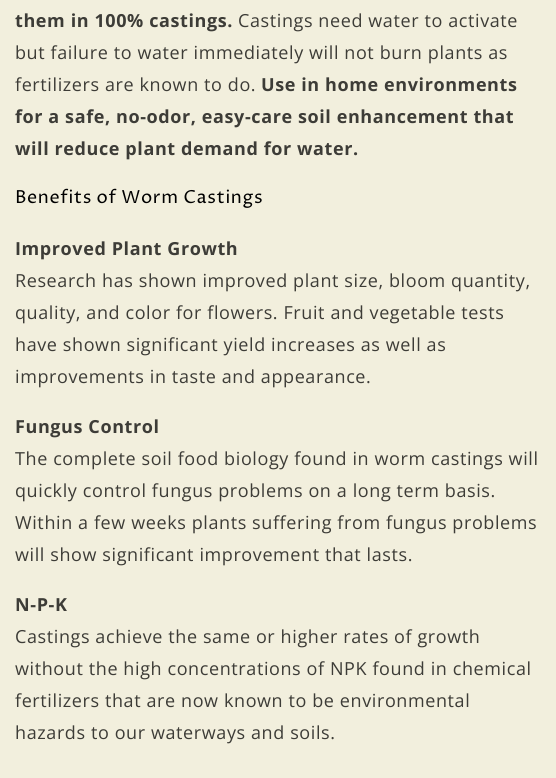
#include <cairo.h>
#include <math.h>
#include <stddef.h>

typedef struct { double x, y; const char *s; } line_t;

static void ink(cairo_t *ctx, unsigned color) {
    cairo_set_source_rgb(ctx, (color >> 16) / 255.0, (color >> 8 & 255) / 255.0, (color & 255) / 255.0);
}

static void write_spaced(cairo_t *ctx, double x, double y, const char *s, double letter, double word) {
    cairo_move_to(ctx, x, y);
    while (*s) {
        char ch[5] = {0};
        int n = 0;
        do ch[n++] = *s++; while ((*s & 0xC0) == 0x80);
        cairo_show_text(ctx, ch);
        cairo_rel_move_to(ctx, letter + word * (*ch == ' '), 0);
    }
}

int main(void) {
    cairo_surface_t *surface = cairo_image_surface_create(CAIRO_FORMAT_RGB24, 556, 778);
    cairo_t *ctx = cairo_create(surface);
    cairo_font_options_t *options = cairo_font_options_create();
    cairo_font_options_set_hint_metrics(options, CAIRO_HINT_METRICS_OFF);
    cairo_font_options_set_hint_style(options, CAIRO_HINT_STYLE_NONE);
    cairo_set_font_options(ctx, options);
    cairo_set_miter_limit(ctx, 4);
    ink(ctx, 0xF2EFDD);
    cairo_paint(ctx);
    cairo_select_font_face(ctx, "Open Sans", CAIRO_FONT_SLANT_NORMAL, CAIRO_FONT_WEIGHT_BOLD);
    cairo_set_font_size(ctx, 18);
    ink(ctx, 0x3D3C37);
    write_spaced(ctx, 15, 27, "them in 100% castings.", 0.6, 0);
    cairo_select_font_face(ctx, "Open Sans", CAIRO_FONT_SLANT_NORMAL, CAIRO_FONT_WEIGHT_NORMAL);
    {
        static const line_t items[] = {
            {238, 27, "Castings need water to activate"},
            {15, 59, "but failure to water immediately will not burn plants as"},
            {15, 91, "fertilizers are known to do."},
        };
        for (size_t i = 0; i < sizeof items / sizeof *items; i++) {
            write_spaced(ctx, items[i].x, items[i].y, items[i].s, 0.6, 0);
        }
    }
    cairo_select_font_face(ctx, "Open Sans", CAIRO_FONT_SLANT_NORMAL, CAIRO_FONT_WEIGHT_BOLD);
    {
        static const line_t items[] = {
            {261, 91, "Use in home environments"},
            {15, 123, "for a safe, no-odor, easy-care soil enhancement that"},
            {15, 155, "will reduce plant demand for water."},
        };
        for (size_t i = 0; i < sizeof items / sizeof *items; i++) {
            write_spaced(ctx, items[i].x, items[i].y, items[i].s, 0.6, 0);
        }
    }
    cairo_select_font_face(ctx, "Proza Libre", CAIRO_FONT_SLANT_NORMAL, CAIRO_FONT_WEIGHT_NORMAL);
    ink(ctx, 0x000000);
    write_spaced(ctx, 15, 203, "Benefits of Worm Castings", 0.6, 0);
    cairo_select_font_face(ctx, "Open Sans", CAIRO_FONT_SLANT_NORMAL, CAIRO_FONT_WEIGHT_BOLD);
    ink(ctx, 0x3D3C37);
    write_spaced(ctx, 15, 255, "Improved Plant Growth", 0.6, 0);
    cairo_select_font_face(ctx, "Open Sans", CAIRO_FONT_SLANT_NORMAL, CAIRO_FONT_WEIGHT_NORMAL);
    {
        static const line_t items[] = {
            {15, 287, "Research has shown improved plant size, bloom quantity,"},
            {15, 319, "quality, and color for flowers. Fruit and vegetable tests"},
            {15, 351, "have shown significant yield increases as well as"},
            {15, 383, "improvements in taste and appearance."},
        };
        for (size_t i = 0; i < sizeof items / sizeof *items; i++) {
            write_spaced(ctx, items[i].x, items[i].y, items[i].s, 0.6, 0);
        }
    }
    cairo_select_font_face(ctx, "Open Sans", CAIRO_FONT_SLANT_NORMAL, CAIRO_FONT_WEIGHT_BOLD);
    write_spaced(ctx, 15, 433, "Fungus Control", 0.6, 0);
    cairo_select_font_face(ctx, "Open Sans", CAIRO_FONT_SLANT_NORMAL, CAIRO_FONT_WEIGHT_NORMAL);
    {
        static const line_t items[] = {
            {15, 465, "The complete soil food biology found in worm castings will"},
            {15, 497, "quickly control fungus problems on a long term basis."},
            {15, 529, "Within a few weeks plants suffering from fungus problems"},
            {15, 561, "will show significant improvement that lasts."},
        };
        for (size_t i = 0; i < sizeof items / sizeof *items; i++) {
            write_spaced(ctx, items[i].x, items[i].y, items[i].s, 0.6, 0);
        }
    }
    cairo_select_font_face(ctx, "Open Sans", CAIRO_FONT_SLANT_NORMAL, CAIRO_FONT_WEIGHT_BOLD);
    write_spaced(ctx, 15, 611, "N-P-K", 0.6, 0);
    cairo_select_font_face(ctx, "Open Sans", CAIRO_FONT_SLANT_NORMAL, CAIRO_FONT_WEIGHT_NORMAL);
    {
        static const line_t items[] = {
            {15, 643, "Castings achieve the same or higher rates of growth"},
            {15, 675, "without the high concentrations of NPK found in chemical"},
            {15, 707, "fertilizers that are now known to be environmental"},
            {15, 739, "hazards to our waterways and soils."},
        };
        for (size_t i = 0; i < sizeof items / sizeof *items; i++) {
            write_spaced(ctx, items[i].x, items[i].y, items[i].s, 0.6, 0);
        }
    }
    cairo_surface_write_to_png(surface, "image.png");
    cairo_font_options_destroy(options);
    cairo_destroy(ctx);
    cairo_surface_destroy(surface);
    return 0;
}
